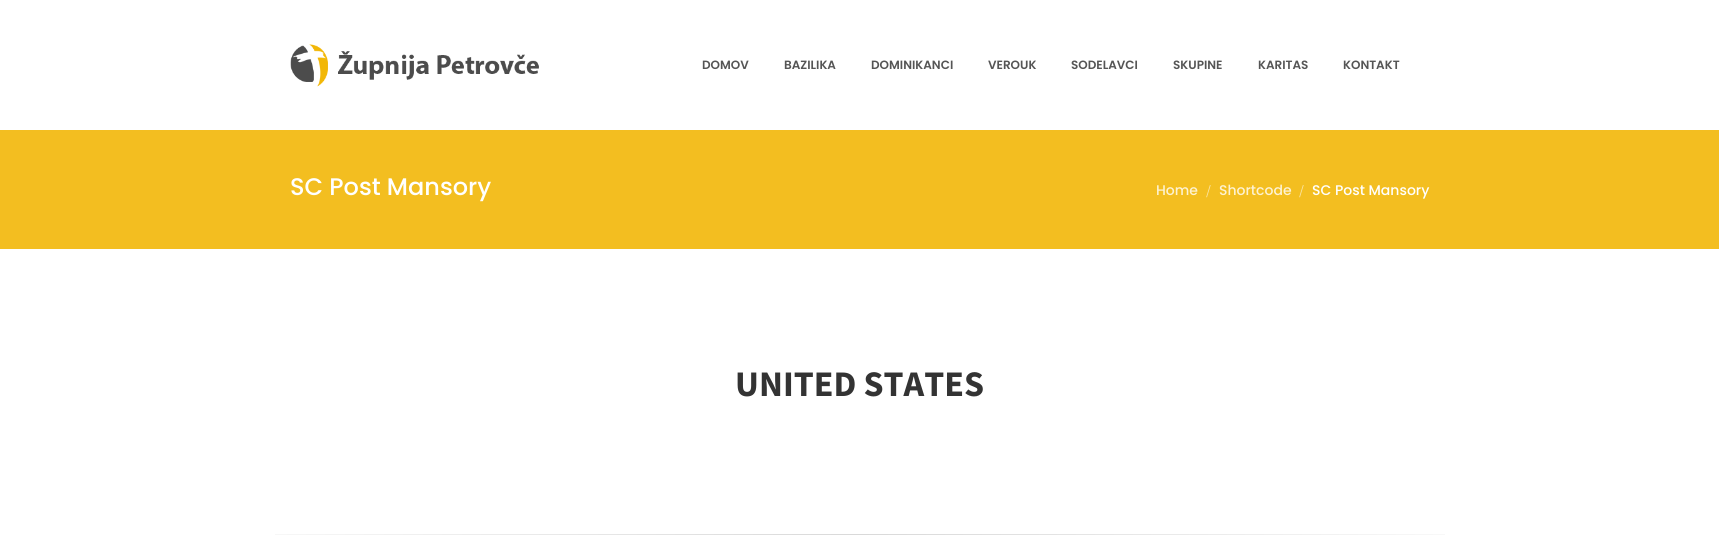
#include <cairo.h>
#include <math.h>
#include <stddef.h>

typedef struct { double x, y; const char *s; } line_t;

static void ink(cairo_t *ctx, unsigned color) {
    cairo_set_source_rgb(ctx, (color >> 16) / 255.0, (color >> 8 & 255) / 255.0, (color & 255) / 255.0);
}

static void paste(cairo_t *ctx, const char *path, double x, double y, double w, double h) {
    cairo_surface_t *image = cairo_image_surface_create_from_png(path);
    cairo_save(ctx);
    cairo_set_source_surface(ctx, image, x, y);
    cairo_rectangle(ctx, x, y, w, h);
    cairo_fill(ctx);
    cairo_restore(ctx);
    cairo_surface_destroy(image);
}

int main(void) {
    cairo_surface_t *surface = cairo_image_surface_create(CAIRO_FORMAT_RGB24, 1719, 553);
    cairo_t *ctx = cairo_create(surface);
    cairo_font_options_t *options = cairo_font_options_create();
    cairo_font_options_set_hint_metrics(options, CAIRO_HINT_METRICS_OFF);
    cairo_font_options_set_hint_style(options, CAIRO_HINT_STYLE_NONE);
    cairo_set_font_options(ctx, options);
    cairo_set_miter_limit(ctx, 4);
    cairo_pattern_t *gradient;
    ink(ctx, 0xFFFFFF);
    cairo_paint(ctx);
    paste(ctx, "media/1.png", 290, 44, 249, 43);
    cairo_select_font_face(ctx, "Poppins SemiBold", CAIRO_FONT_SLANT_NORMAL, CAIRO_FONT_WEIGHT_NORMAL);
    cairo_set_font_size(ctx, 12);
    ink(ctx, 0x555555);
    {
        static const line_t items[] = {
            {702, 69, "DOMOV"},
            {784, 69, "BAZILIKA"},
            {871, 69, "DOMINIKANCI"},
            {988, 69, "VEROUK"},
            {1071, 69, "SODELAVCI"},
            {1173, 69, "SKUPINE"},
            {1258, 69, "KARITAS"},
            {1343, 69, "KONTAKT"},
        };
        for (size_t i = 0; i < sizeof items / sizeof *items; i++) {
            cairo_move_to(ctx, items[i].x, items[i].y);
            cairo_show_text(ctx, items[i].s);
        }
    }
    ink(ctx, 0xF3BE20);
    cairo_rectangle(ctx, 0, 130, 1719, 119);
    cairo_fill(ctx);
    cairo_select_font_face(ctx, "Poppins Medium", CAIRO_FONT_SLANT_NORMAL, CAIRO_FONT_WEIGHT_NORMAL);
    cairo_set_font_size(ctx, 24);
    ink(ctx, 0xFFFFFF);
    cairo_move_to(ctx, 290, 195);
    cairo_show_text(ctx, "SC Post Mansory");
    cairo_set_font_size(ctx, 14);
    ink(ctx, 0xFDF2D2);
    cairo_move_to(ctx, 1156, 195);
    cairo_show_text(ctx, "Home");
    cairo_select_font_face(ctx, "Source Sans Pro", CAIRO_FONT_SLANT_NORMAL, CAIRO_FONT_WEIGHT_NORMAL);
    ink(ctx, 0xFAE5A6);
    cairo_move_to(ctx, 1206, 195);
    cairo_show_text(ctx, "/");
    cairo_select_font_face(ctx, "Poppins Medium", CAIRO_FONT_SLANT_NORMAL, CAIRO_FONT_WEIGHT_NORMAL);
    ink(ctx, 0xFDF2D2);
    cairo_move_to(ctx, 1219, 195);
    cairo_show_text(ctx, "Shortcode");
    cairo_select_font_face(ctx, "Source Sans Pro", CAIRO_FONT_SLANT_NORMAL, CAIRO_FONT_WEIGHT_NORMAL);
    ink(ctx, 0xFAE5A6);
    cairo_move_to(ctx, 1299, 195);
    cairo_show_text(ctx, "/");
    cairo_select_font_face(ctx, "Poppins Medium", CAIRO_FONT_SLANT_NORMAL, CAIRO_FONT_WEIGHT_NORMAL);
    ink(ctx, 0xFFFFFF);
    cairo_move_to(ctx, 1312, 195);
    cairo_show_text(ctx, "SC Post Mansory");
    cairo_select_font_face(ctx, "Source Sans Pro", CAIRO_FONT_SLANT_NORMAL, CAIRO_FONT_WEIGHT_BOLD);
    cairo_set_font_size(ctx, 36);
    ink(ctx, 0x333333);
    cairo_move_to(ctx, 735, 396);
    cairo_show_text(ctx, "UNITED STATES");
    gradient = cairo_pattern_create_linear(275, 535, 1445, 535);
    cairo_pattern_add_color_stop_rgba(gradient, 0, 0.969, 0.969, 0.969, 1);
    cairo_pattern_add_color_stop_rgba(gradient, 0.5, 0.851, 0.851, 0.851, 1);
    cairo_pattern_add_color_stop_rgba(gradient, 1, 0.973, 0.973, 0.973, 1);
    cairo_set_source(ctx, gradient);
    cairo_pattern_destroy(gradient);
    cairo_rectangle(ctx, 275, 534, 1170, 1);
    cairo_fill(ctx);
    cairo_surface_write_to_png(surface, "image.png");
    cairo_font_options_destroy(options);
    cairo_destroy(ctx);
    cairo_surface_destroy(surface);
    return 0;
}
